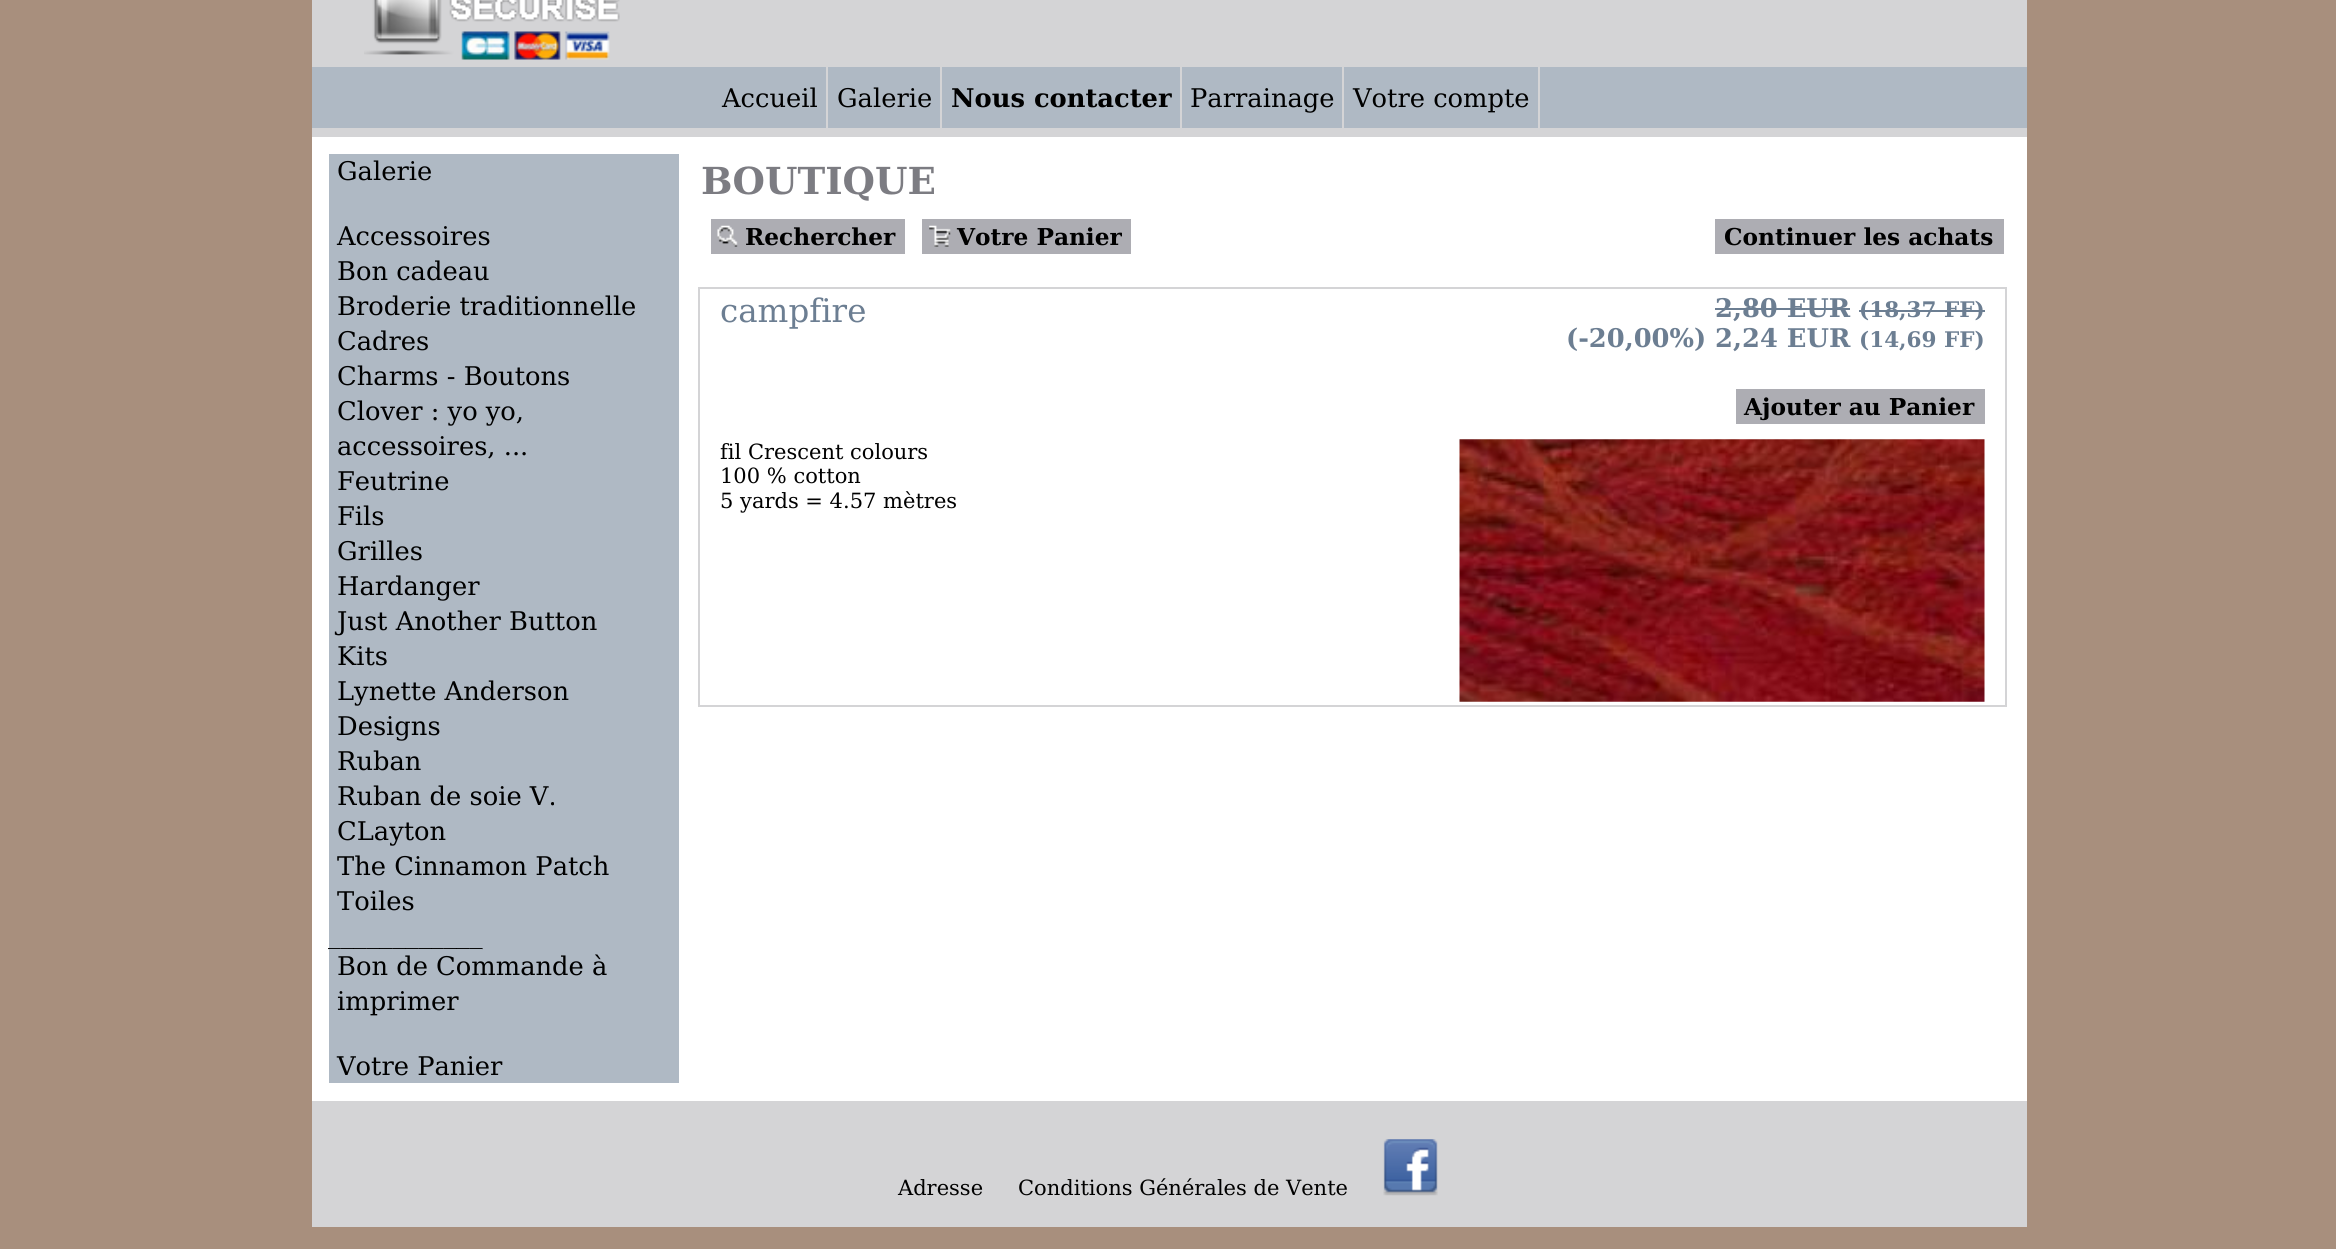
#include <cairo.h>
#include <math.h>
#include <stddef.h>

typedef struct { double x, y; const char *s; } line_t;

static void ink(cairo_t *ctx, unsigned color) {
    cairo_set_source_rgb(ctx, (color >> 16) / 255.0, (color >> 8 & 255) / 255.0, (color & 255) / 255.0);
}

static void paste(cairo_t *ctx, const char *path, double x, double y, double w, double h) {
    cairo_surface_t *image = cairo_image_surface_create_from_png(path);
    cairo_save(ctx);
    cairo_set_source_surface(ctx, image, x, y);
    cairo_rectangle(ctx, x, y, w, h);
    cairo_fill(ctx);
    cairo_restore(ctx);
    cairo_surface_destroy(image);
}

int main(void) {
    cairo_surface_t *surface = cairo_image_surface_create(CAIRO_FORMAT_RGB24, 2336, 1249);
    cairo_t *ctx = cairo_create(surface);
    cairo_font_options_t *options = cairo_font_options_create();
    cairo_font_options_set_hint_metrics(options, CAIRO_HINT_METRICS_OFF);
    cairo_font_options_set_hint_style(options, CAIRO_HINT_STYLE_NONE);
    cairo_set_font_options(ctx, options);
    cairo_set_miter_limit(ctx, 4);
    ink(ctx, 0xA88F7D);
    cairo_paint(ctx);
    ink(ctx, 0xFFFFFF);
    cairo_rectangle(ctx, 312, 137, 1715, 964);
    cairo_fill(ctx);
    ink(ctx, 0xD4D4D6);
    cairo_rectangle(ctx, 312, 0, 1715, 137);
    cairo_fill(ctx);
    paste(ctx, "media/1.png", 364, 0, 256, 60);
    ink(ctx, 0xAFB9C4);
    cairo_rectangle(ctx, 312, 67, 1715, 61);
    cairo_fill(ctx);
    ink(ctx, 0xD4D4D6);
    cairo_rectangle(ctx, 826, 67, 2, 61);
    cairo_fill(ctx);
    cairo_select_font_face(ctx, "DejaVu Serif", CAIRO_FONT_SLANT_NORMAL, CAIRO_FONT_WEIGHT_NORMAL);
    cairo_set_font_size(ctx, 25.75);
    ink(ctx, 0x000000);
    cairo_move_to(ctx, 722, 107);
    cairo_show_text(ctx, "Accueil");
    ink(ctx, 0xD4D4D6);
    cairo_rectangle(ctx, 940, 67, 2, 61);
    cairo_fill(ctx);
    ink(ctx, 0x000000);
    cairo_move_to(ctx, 837, 107);
    cairo_show_text(ctx, "Galerie");
    ink(ctx, 0xD4D4D6);
    cairo_rectangle(ctx, 1180, 67, 2, 61);
    cairo_fill(ctx);
    cairo_select_font_face(ctx, "DejaVu Serif", CAIRO_FONT_SLANT_NORMAL, CAIRO_FONT_WEIGHT_BOLD);
    ink(ctx, 0x000000);
    cairo_move_to(ctx, 951, 107);
    cairo_show_text(ctx, "Nous contacter");
    ink(ctx, 0xD4D4D6);
    cairo_rectangle(ctx, 1342, 67, 2, 61);
    cairo_fill(ctx);
    cairo_select_font_face(ctx, "DejaVu Serif", CAIRO_FONT_SLANT_NORMAL, CAIRO_FONT_WEIGHT_NORMAL);
    ink(ctx, 0x000000);
    cairo_move_to(ctx, 1190, 107);
    cairo_show_text(ctx, "Parrainage");
    ink(ctx, 0xD4D4D6);
    cairo_rectangle(ctx, 1538, 67, 2, 61);
    cairo_fill(ctx);
    ink(ctx, 0x000000);
    cairo_move_to(ctx, 1353, 107);
    cairo_show_text(ctx, "Votre compte");
    ink(ctx, 0xAFB9C4);
    cairo_rectangle(ctx, 329, 154, 350, 929);
    cairo_fill(ctx);
    ink(ctx, 0x000000);
    {
        static const line_t items[] = {
            {337, 180, "Galerie"},
            {337, 245, "Accessoires"},
            {337, 280, "Bon cadeau"},
            {337, 315, "Broderie traditionnelle"},
            {337, 350, "Cadres"},
            {337, 385, "Charms - Boutons"},
            {337, 420, "Clover : yo yo,"},
            {337, 455, "accessoires, ..."},
            {337, 490, "Feutrine"},
            {337, 525, "Fils"},
            {337, 560, "Grilles"},
            {337, 595, "Hardanger"},
            {337, 630, "Just Another Button"},
            {337, 665, "Kits"},
            {337, 700, "Lynette Anderson"},
            {337, 735, "Designs"},
            {337, 770, "Ruban"},
            {337, 805, "Ruban de soie V."},
            {337, 840, "CLayton"},
            {337, 875, "The Cinnamon Patch"},
            {337, 910, "Toiles"},
            {328, 943, "____________"},
        };
        for (size_t i = 0; i < sizeof items / sizeof *items; i++) {
            cairo_move_to(ctx, items[i].x, items[i].y);
            cairo_show_text(ctx, items[i].s);
        }
    }
    ink(ctx, 0xAFB9C4);
    cairo_rectangle(ctx, 329, 949, 153, 1);
    cairo_fill(ctx);
    ink(ctx, 0x000000);
    {
        static const line_t items[] = {
            {337, 975, "Bon de Commande à"},
            {337, 1010, "imprimer"},
            {337, 1075, "Votre Panier"},
        };
        for (size_t i = 0; i < sizeof items / sizeof *items; i++) {
            cairo_move_to(ctx, items[i].x, items[i].y);
            cairo_show_text(ctx, items[i].s);
        }
    }
    cairo_select_font_face(ctx, "DejaVu Serif", CAIRO_FONT_SLANT_NORMAL, CAIRO_FONT_WEIGHT_BOLD);
    cairo_set_font_size(ctx, 37.25);
    ink(ctx, 0x7C7C82);
    cairo_move_to(ctx, 701, 194);
    cairo_show_text(ctx, "BOUTIQUE");
    ink(ctx, 0xADADB3);
    cairo_rectangle(ctx, 711, 219, 194, 35);
    cairo_fill(ctx);
    paste(ctx, "media/2.png", 717, 225, 21, 22);
    cairo_set_font_size(ctx, 23.25);
    ink(ctx, 0x000000);
    cairo_move_to(ctx, 745, 245);
    cairo_show_text(ctx, "Rechercher");
    ink(ctx, 0xADADB3);
    cairo_rectangle(ctx, 922, 219, 209, 35);
    cairo_fill(ctx);
    paste(ctx, "media/3.png", 929, 225, 22, 22);
    ink(ctx, 0x000000);
    cairo_move_to(ctx, 957, 245);
    cairo_show_text(ctx, "Votre Panier");
    ink(ctx, 0xADADB3);
    cairo_rectangle(ctx, 1715, 219, 289, 35);
    cairo_fill(ctx);
    ink(ctx, 0x000000);
    cairo_move_to(ctx, 1724, 245);
    cairo_show_text(ctx, "Continuer les achats");
    cairo_rectangle(ctx, 699, 288, 1307, 418);
    ink(ctx, 0xD4D4D6);
    cairo_stroke(ctx);
    cairo_select_font_face(ctx, "DejaVu Serif", CAIRO_FONT_SLANT_NORMAL, CAIRO_FONT_WEIGHT_NORMAL);
    cairo_set_font_size(ctx, 32.5);
    ink(ctx, 0x6C7E92);
    cairo_move_to(ctx, 720, 322);
    cairo_show_text(ctx, "campfire");
    cairo_select_font_face(ctx, "DejaVu Serif", CAIRO_FONT_SLANT_NORMAL, CAIRO_FONT_WEIGHT_BOLD);
    cairo_set_font_size(ctx, 25.75);
    cairo_move_to(ctx, 1715, 317);
    cairo_show_text(ctx, "2,80 EUR");
    cairo_rectangle(ctx, 1715, 308, 135, 2);
    cairo_fill(ctx);
    cairo_set_font_size(ctx, 21.5);
    cairo_move_to(ctx, 1859, 317);
    cairo_show_text(ctx, "(18,37 FF)");
    cairo_rectangle(ctx, 1859, 310, 126, 2);
    cairo_fill(ctx);
    cairo_set_font_size(ctx, 25.75);
    cairo_move_to(ctx, 1566, 347);
    cairo_show_text(ctx, "(-20,00%) 2,24 EUR");
    cairo_set_font_size(ctx, 21.5);
    cairo_move_to(ctx, 1859, 347);
    cairo_show_text(ctx, "(14,69 FF)");
    ink(ctx, 0xADADB3);
    cairo_rectangle(ctx, 1736, 389, 249, 35);
    cairo_fill(ctx);
    cairo_set_font_size(ctx, 23.25);
    ink(ctx, 0x000000);
    cairo_move_to(ctx, 1744, 415);
    cairo_show_text(ctx, "Ajouter au Panier");
    cairo_select_font_face(ctx, "DejaVu Serif", CAIRO_FONT_SLANT_NORMAL, CAIRO_FONT_WEIGHT_NORMAL);
    cairo_set_font_size(ctx, 21);
    cairo_move_to(ctx, 720, 459);
    cairo_show_text(ctx, "fil Crescent colours");
    paste(ctx, "media/4.png", 1459, 439, 526, 263);
    cairo_move_to(ctx, 720, 483);
    cairo_show_text(ctx, "100 % cotton");
    cairo_move_to(ctx, 720, 508);
    cairo_show_text(ctx, "5 yards = 4.57 mètres");
    ink(ctx, 0xD4D4D6);
    cairo_rectangle(ctx, 312, 1101, 1715, 126);
    cairo_fill(ctx);
    ink(ctx, 0x000000);
    cairo_move_to(ctx, 898, 1195);
    cairo_show_text(ctx, "Adresse");
    cairo_move_to(ctx, 1018, 1195);
    cairo_show_text(ctx, "Conditions Générales de Vente");
    paste(ctx, "media/5.png", 1383, 1139, 55, 57);
    cairo_surface_write_to_png(surface, "image.png");
    cairo_font_options_destroy(options);
    cairo_destroy(ctx);
    cairo_surface_destroy(surface);
    return 0;
}
